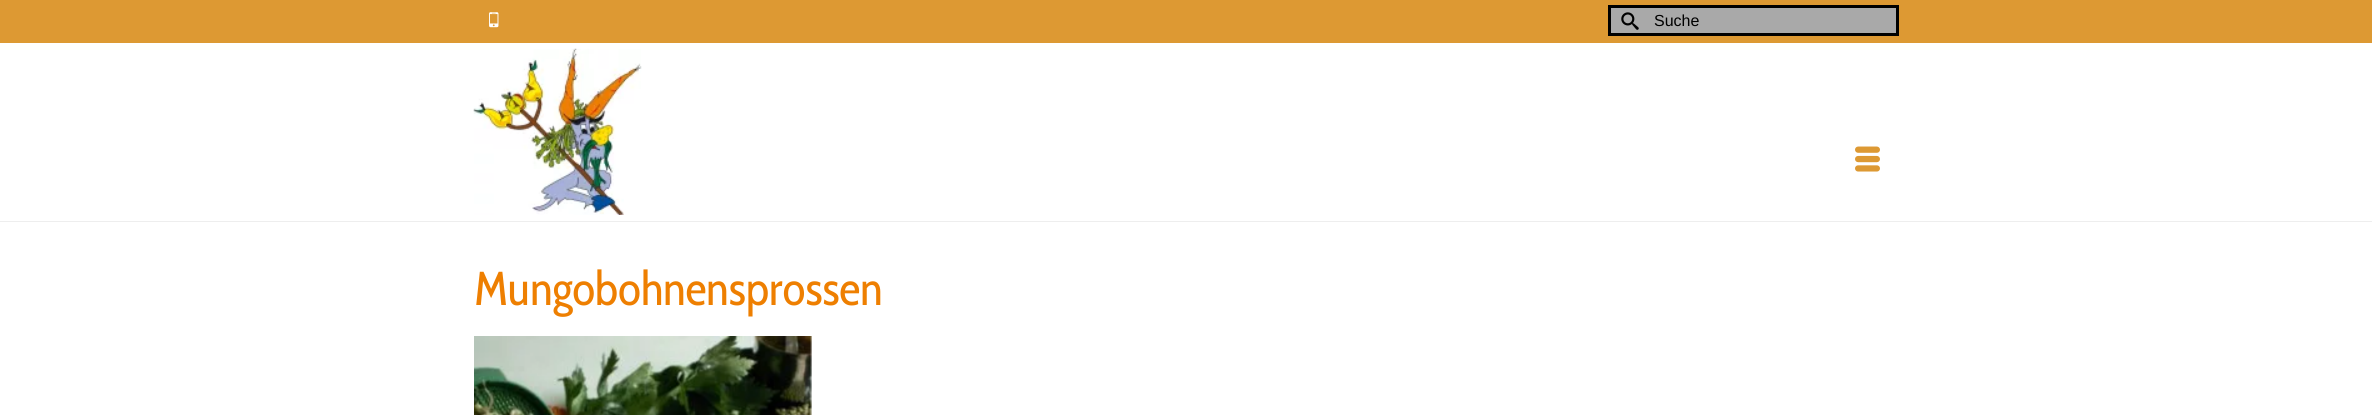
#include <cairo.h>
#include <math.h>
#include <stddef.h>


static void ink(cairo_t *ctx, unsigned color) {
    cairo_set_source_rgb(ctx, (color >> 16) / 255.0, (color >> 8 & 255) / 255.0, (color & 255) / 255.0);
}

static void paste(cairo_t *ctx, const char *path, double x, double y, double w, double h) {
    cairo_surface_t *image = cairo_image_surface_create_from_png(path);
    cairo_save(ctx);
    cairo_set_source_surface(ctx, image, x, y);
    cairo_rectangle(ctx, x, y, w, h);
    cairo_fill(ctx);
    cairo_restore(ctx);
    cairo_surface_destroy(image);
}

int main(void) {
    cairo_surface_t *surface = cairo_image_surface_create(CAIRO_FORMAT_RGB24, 2372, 415);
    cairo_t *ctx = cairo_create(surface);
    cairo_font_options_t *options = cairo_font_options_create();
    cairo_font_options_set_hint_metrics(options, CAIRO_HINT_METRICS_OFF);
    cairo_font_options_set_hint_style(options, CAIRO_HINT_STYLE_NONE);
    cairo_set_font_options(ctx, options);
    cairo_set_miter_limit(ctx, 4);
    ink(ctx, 0xFFFFFF);
    cairo_paint(ctx);
    ink(ctx, 0xEEEEEE);
    cairo_rectangle(ctx, 0, 221, 2372, 1);
    cairo_fill(ctx);
    ink(ctx, 0xDD9933);
    cairo_rectangle(ctx, 0, 0, 2372, 43);
    cairo_fill(ctx);
    paste(ctx, "media/1.png", 489, 12, 10, 16);
    ink(ctx, 0xA9A9A9);
    cairo_rectangle(ctx, 1609.5, 6.5, 288, 28);
    cairo_fill_preserve(ctx);
    ink(ctx, 0x000000);
    cairo_set_line_width(ctx, 3);
    cairo_stroke(ctx);
    paste(ctx, "media/2.png", 1621, 12, 18, 18);
    cairo_select_font_face(ctx, "Liberation Sans", CAIRO_FONT_SLANT_NORMAL, CAIRO_FONT_WEIGHT_NORMAL);
    cairo_set_font_size(ctx, 16);
    cairo_move_to(ctx, 1654, 26);
    cairo_show_text(ctx, "Suche");
    paste(ctx, "media/3.png", 473, 48, 169, 167);
    paste(ctx, "media/4.png", 1855, 146, 25, 26);
    cairo_select_font_face(ctx, "Cabin Condensed", CAIRO_FONT_SLANT_NORMAL, CAIRO_FONT_WEIGHT_NORMAL);
    cairo_set_font_size(ctx, 47.5);
    ink(ctx, 0xEE7F01);
    cairo_move_to(ctx, 474, 305);
    cairo_show_text(ctx, "Mungobohnensprossen");
    paste(ctx, "media/5.png", 474, 336, 338, 79);
    cairo_surface_write_to_png(surface, "image.png");
    cairo_font_options_destroy(options);
    cairo_destroy(ctx);
    cairo_surface_destroy(surface);
    return 0;
}
